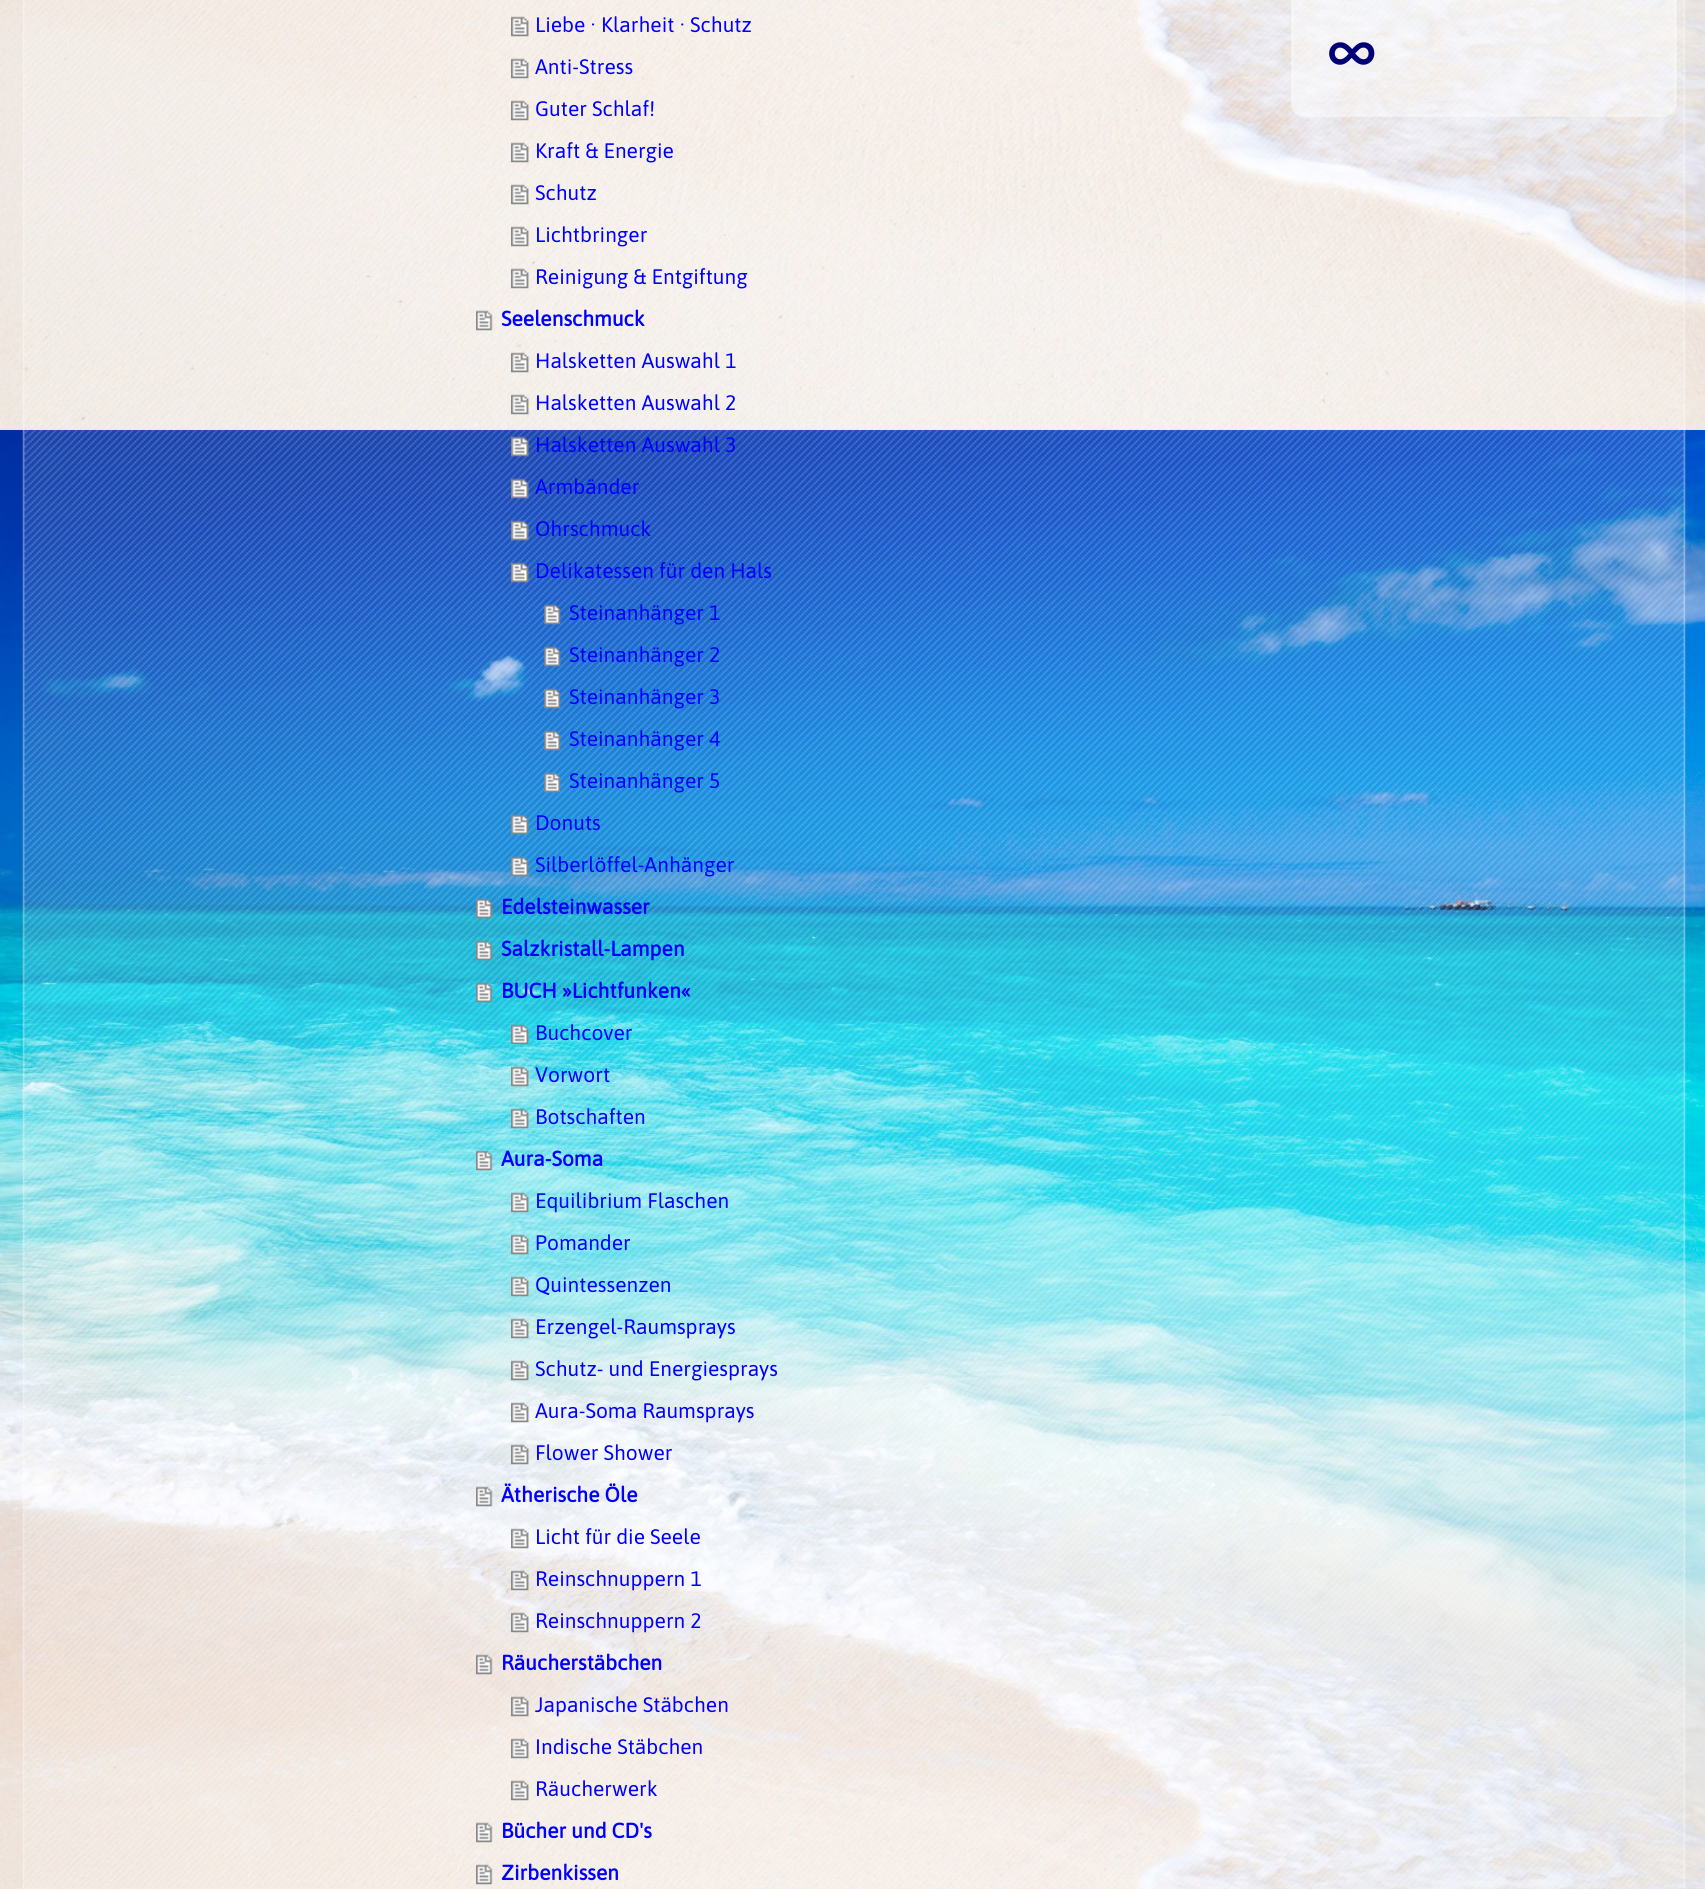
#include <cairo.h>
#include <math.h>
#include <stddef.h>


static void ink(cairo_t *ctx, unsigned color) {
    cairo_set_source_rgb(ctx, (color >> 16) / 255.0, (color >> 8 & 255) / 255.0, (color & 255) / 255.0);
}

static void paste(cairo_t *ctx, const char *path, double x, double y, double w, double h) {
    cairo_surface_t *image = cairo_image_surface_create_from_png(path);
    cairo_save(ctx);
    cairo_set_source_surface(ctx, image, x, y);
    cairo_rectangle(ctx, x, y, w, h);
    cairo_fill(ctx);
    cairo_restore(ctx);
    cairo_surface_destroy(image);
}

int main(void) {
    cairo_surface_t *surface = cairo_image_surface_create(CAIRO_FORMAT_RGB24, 1705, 1889);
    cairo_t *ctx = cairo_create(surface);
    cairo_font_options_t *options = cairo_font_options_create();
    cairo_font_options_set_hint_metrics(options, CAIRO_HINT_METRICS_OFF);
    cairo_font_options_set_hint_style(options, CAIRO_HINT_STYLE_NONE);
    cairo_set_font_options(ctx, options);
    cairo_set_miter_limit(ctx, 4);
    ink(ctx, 0xFFFFFF);
    cairo_paint(ctx);
    paste(ctx, "media/1.png", 0, 0, 1705, 1889);
    paste(ctx, "media/2.png", 22, 0, 1664, 1889);
    paste(ctx, "media/3.png", 511, 16, 18, 21);
    cairo_select_font_face(ctx, "Asap", CAIRO_FONT_SLANT_NORMAL, CAIRO_FONT_WEIGHT_NORMAL);
    cairo_set_font_size(ctx, 21);
    ink(ctx, 0x0000FF);
    cairo_move_to(ctx, 535, 32);
    cairo_show_text(ctx, "Liebe · Klarheit · Schutz");
    paste(ctx, "media/4.png", 511, 58, 18, 21);
    cairo_move_to(ctx, 535, 74);
    cairo_show_text(ctx, "Anti-Stress");
    paste(ctx, "media/5.png", 511, 100, 18, 21);
    cairo_move_to(ctx, 535, 116);
    cairo_show_text(ctx, "Guter Schlaf!");
    paste(ctx, "media/6.png", 511, 142, 18, 21);
    cairo_move_to(ctx, 535, 158);
    cairo_show_text(ctx, "Kraft & Energie");
    paste(ctx, "media/7.png", 511, 184, 18, 21);
    cairo_move_to(ctx, 535, 200);
    cairo_show_text(ctx, "Schutz");
    paste(ctx, "media/8.png", 511, 226, 18, 21);
    cairo_move_to(ctx, 535, 242);
    cairo_show_text(ctx, "Lichtbringer");
    paste(ctx, "media/9.png", 511, 268, 18, 21);
    cairo_move_to(ctx, 535, 284);
    cairo_show_text(ctx, "Reinigung & Entgiftung");
    paste(ctx, "media/10.png", 476, 310, 17, 21);
    cairo_select_font_face(ctx, "Asap", CAIRO_FONT_SLANT_NORMAL, CAIRO_FONT_WEIGHT_BOLD);
    cairo_move_to(ctx, 501, 326);
    cairo_show_text(ctx, "Seelenschmuck");
    paste(ctx, "media/11.png", 511, 352, 18, 21);
    cairo_select_font_face(ctx, "Asap", CAIRO_FONT_SLANT_NORMAL, CAIRO_FONT_WEIGHT_NORMAL);
    cairo_move_to(ctx, 535, 368);
    cairo_show_text(ctx, "Halsketten Auswahl 1");
    paste(ctx, "media/12.png", 511, 394, 18, 21);
    cairo_move_to(ctx, 535, 410);
    cairo_show_text(ctx, "Halsketten Auswahl 2");
    paste(ctx, "media/13.png", 511, 436, 18, 21);
    cairo_move_to(ctx, 535, 452);
    cairo_show_text(ctx, "Halsketten Auswahl 3");
    paste(ctx, "media/14.png", 511, 478, 18, 21);
    cairo_move_to(ctx, 535, 494);
    cairo_show_text(ctx, "Armbänder");
    paste(ctx, "media/15.png", 511, 520, 18, 21);
    cairo_move_to(ctx, 535, 536);
    cairo_show_text(ctx, "Ohrschmuck");
    paste(ctx, "media/16.png", 511, 562, 18, 21);
    cairo_move_to(ctx, 535, 578);
    cairo_show_text(ctx, "Delikatessen für den Hals");
    paste(ctx, "media/17.png", 544, 604, 17, 21);
    cairo_move_to(ctx, 569, 620);
    cairo_show_text(ctx, "Steinanhänger 1");
    paste(ctx, "media/18.png", 544, 646, 17, 21);
    cairo_move_to(ctx, 569, 662);
    cairo_show_text(ctx, "Steinanhänger 2");
    paste(ctx, "media/19.png", 544, 688, 17, 21);
    cairo_move_to(ctx, 569, 704);
    cairo_show_text(ctx, "Steinanhänger 3");
    paste(ctx, "media/20.png", 544, 730, 17, 21);
    cairo_move_to(ctx, 569, 746);
    cairo_show_text(ctx, "Steinanhänger 4");
    paste(ctx, "media/21.png", 544, 772, 17, 21);
    cairo_move_to(ctx, 569, 788);
    cairo_show_text(ctx, "Steinanhänger 5");
    paste(ctx, "media/22.png", 511, 814, 18, 21);
    cairo_move_to(ctx, 535, 830);
    cairo_show_text(ctx, "Donuts");
    paste(ctx, "media/23.png", 511, 856, 18, 21);
    cairo_move_to(ctx, 535, 872);
    cairo_show_text(ctx, "Silberlöffel-Anhänger");
    paste(ctx, "media/24.png", 476, 898, 17, 21);
    cairo_select_font_face(ctx, "Asap", CAIRO_FONT_SLANT_NORMAL, CAIRO_FONT_WEIGHT_BOLD);
    cairo_move_to(ctx, 501, 914);
    cairo_show_text(ctx, "Edelsteinwasser");
    paste(ctx, "media/25.png", 476, 940, 17, 21);
    cairo_move_to(ctx, 501, 956);
    cairo_show_text(ctx, "Salzkristall-Lampen");
    paste(ctx, "media/26.png", 476, 982, 17, 21);
    cairo_move_to(ctx, 501, 998);
    cairo_show_text(ctx, "BUCH »Lichtfunken«");
    paste(ctx, "media/27.png", 511, 1024, 18, 21);
    cairo_select_font_face(ctx, "Asap", CAIRO_FONT_SLANT_NORMAL, CAIRO_FONT_WEIGHT_NORMAL);
    cairo_move_to(ctx, 535, 1040);
    cairo_show_text(ctx, "Buchcover");
    paste(ctx, "media/28.png", 511, 1066, 18, 21);
    cairo_move_to(ctx, 535, 1082);
    cairo_show_text(ctx, "Vorwort");
    paste(ctx, "media/29.png", 511, 1108, 18, 21);
    cairo_move_to(ctx, 535, 1124);
    cairo_show_text(ctx, "Botschaften");
    paste(ctx, "media/30.png", 476, 1150, 17, 21);
    cairo_select_font_face(ctx, "Asap", CAIRO_FONT_SLANT_NORMAL, CAIRO_FONT_WEIGHT_BOLD);
    cairo_move_to(ctx, 501, 1166);
    cairo_show_text(ctx, "Aura-Soma");
    paste(ctx, "media/31.png", 511, 1192, 18, 21);
    cairo_select_font_face(ctx, "Asap", CAIRO_FONT_SLANT_NORMAL, CAIRO_FONT_WEIGHT_NORMAL);
    cairo_move_to(ctx, 535, 1208);
    cairo_show_text(ctx, "Equilibrium Flaschen");
    paste(ctx, "media/32.png", 511, 1234, 18, 21);
    cairo_move_to(ctx, 535, 1250);
    cairo_show_text(ctx, "Pomander");
    paste(ctx, "media/33.png", 511, 1276, 18, 21);
    cairo_move_to(ctx, 535, 1292);
    cairo_show_text(ctx, "Quintessenzen");
    paste(ctx, "media/34.png", 511, 1318, 18, 21);
    cairo_move_to(ctx, 535, 1334);
    cairo_show_text(ctx, "Erzengel-Raumsprays");
    paste(ctx, "media/35.png", 511, 1360, 18, 21);
    cairo_move_to(ctx, 535, 1376);
    cairo_show_text(ctx, "Schutz- und Energiesprays");
    paste(ctx, "media/36.png", 511, 1402, 18, 21);
    cairo_move_to(ctx, 535, 1418);
    cairo_show_text(ctx, "Aura-Soma Raumsprays");
    paste(ctx, "media/37.png", 511, 1444, 18, 21);
    cairo_move_to(ctx, 535, 1460);
    cairo_show_text(ctx, "Flower Shower");
    paste(ctx, "media/38.png", 476, 1486, 17, 21);
    cairo_select_font_face(ctx, "Asap", CAIRO_FONT_SLANT_NORMAL, CAIRO_FONT_WEIGHT_BOLD);
    cairo_move_to(ctx, 501, 1502);
    cairo_show_text(ctx, "Ätherische Öle");
    paste(ctx, "media/39.png", 511, 1528, 18, 21);
    cairo_select_font_face(ctx, "Asap", CAIRO_FONT_SLANT_NORMAL, CAIRO_FONT_WEIGHT_NORMAL);
    cairo_move_to(ctx, 535, 1544);
    cairo_show_text(ctx, "Licht für die Seele");
    paste(ctx, "media/40.png", 511, 1570, 18, 21);
    cairo_move_to(ctx, 535, 1586);
    cairo_show_text(ctx, "Reinschnuppern 1");
    paste(ctx, "media/41.png", 511, 1612, 18, 21);
    cairo_move_to(ctx, 535, 1628);
    cairo_show_text(ctx, "Reinschnuppern 2");
    paste(ctx, "media/42.png", 476, 1654, 17, 21);
    cairo_select_font_face(ctx, "Asap", CAIRO_FONT_SLANT_NORMAL, CAIRO_FONT_WEIGHT_BOLD);
    cairo_move_to(ctx, 501, 1670);
    cairo_show_text(ctx, "Räucherstäbchen");
    paste(ctx, "media/43.png", 511, 1696, 18, 21);
    cairo_select_font_face(ctx, "Asap", CAIRO_FONT_SLANT_NORMAL, CAIRO_FONT_WEIGHT_NORMAL);
    cairo_move_to(ctx, 535, 1712);
    cairo_show_text(ctx, "Japanische Stäbchen");
    paste(ctx, "media/44.png", 511, 1738, 18, 21);
    cairo_move_to(ctx, 535, 1754);
    cairo_show_text(ctx, "Indische Stäbchen");
    paste(ctx, "media/45.png", 511, 1780, 18, 21);
    cairo_move_to(ctx, 535, 1796);
    cairo_show_text(ctx, "Räucherwerk");
    paste(ctx, "media/46.png", 476, 1822, 17, 21);
    cairo_select_font_face(ctx, "Asap", CAIRO_FONT_SLANT_NORMAL, CAIRO_FONT_WEIGHT_BOLD);
    cairo_move_to(ctx, 501, 1838);
    cairo_show_text(ctx, "Bücher und CD's");
    paste(ctx, "media/47.png", 476, 1864, 17, 21);
    cairo_move_to(ctx, 501, 1880);
    cairo_show_text(ctx, "Zirbenkissen");
    paste(ctx, "media/48.png", 1291, 0, 386, 103);
    cairo_set_font_size(ctx, 63);
    ink(ctx, 0x020276);
    cairo_move_to(ctx, 1326, 72);
    cairo_show_text(ctx, "∞");
    paste(ctx, "media/49.png", 1291, 103, 386, 14);
    cairo_surface_write_to_png(surface, "image.png");
    cairo_font_options_destroy(options);
    cairo_destroy(ctx);
    cairo_surface_destroy(surface);
    return 0;
}
